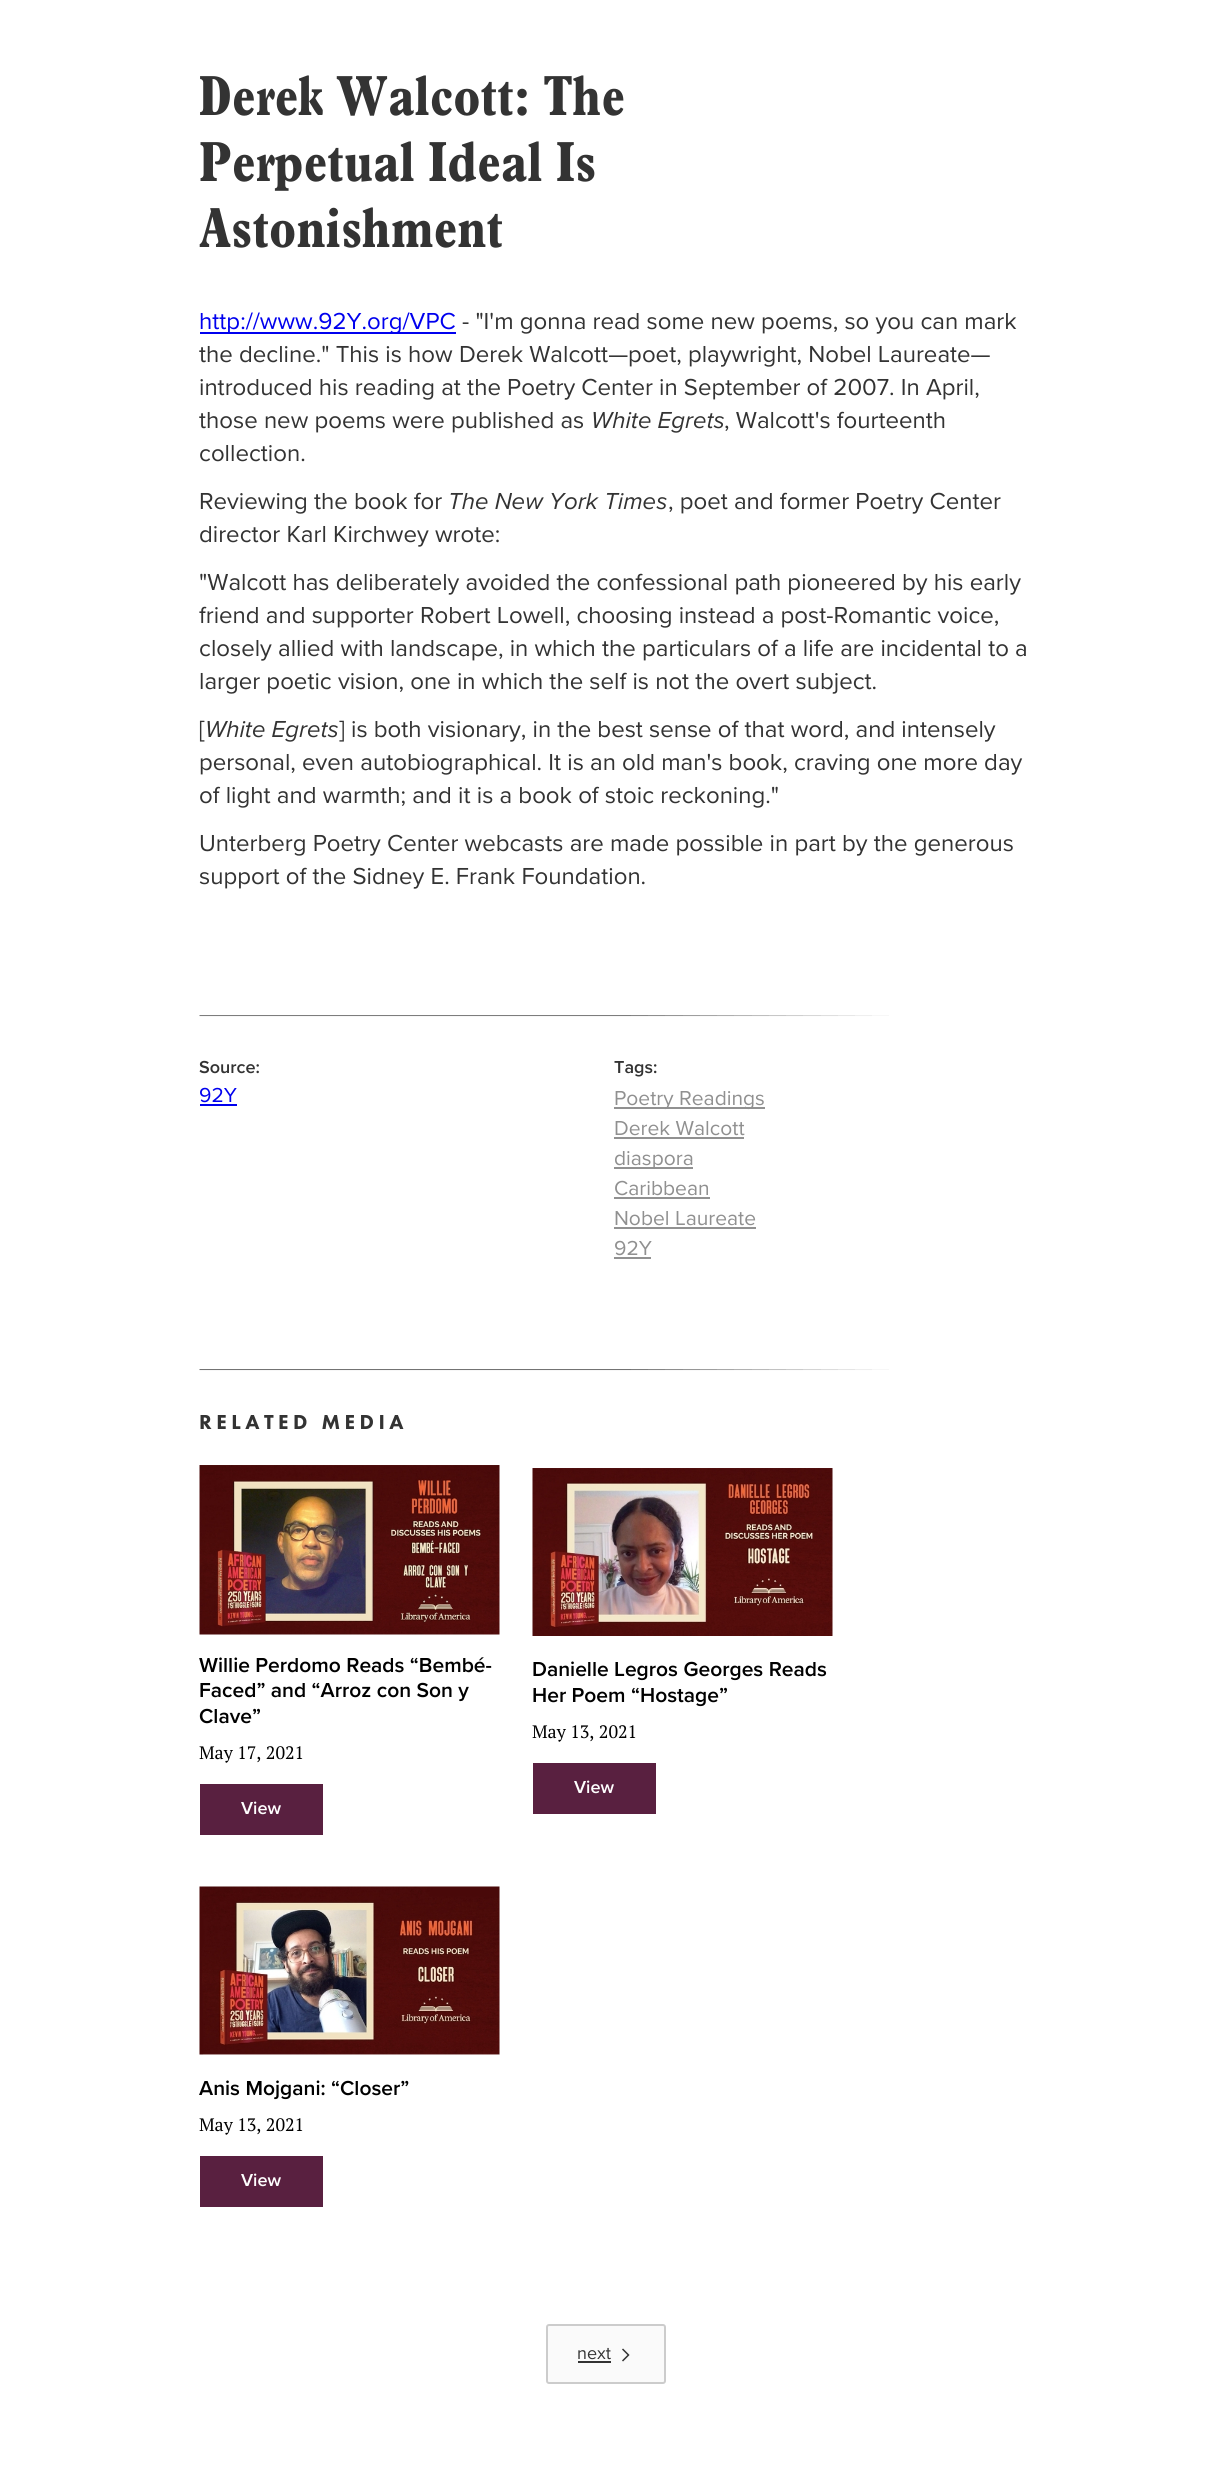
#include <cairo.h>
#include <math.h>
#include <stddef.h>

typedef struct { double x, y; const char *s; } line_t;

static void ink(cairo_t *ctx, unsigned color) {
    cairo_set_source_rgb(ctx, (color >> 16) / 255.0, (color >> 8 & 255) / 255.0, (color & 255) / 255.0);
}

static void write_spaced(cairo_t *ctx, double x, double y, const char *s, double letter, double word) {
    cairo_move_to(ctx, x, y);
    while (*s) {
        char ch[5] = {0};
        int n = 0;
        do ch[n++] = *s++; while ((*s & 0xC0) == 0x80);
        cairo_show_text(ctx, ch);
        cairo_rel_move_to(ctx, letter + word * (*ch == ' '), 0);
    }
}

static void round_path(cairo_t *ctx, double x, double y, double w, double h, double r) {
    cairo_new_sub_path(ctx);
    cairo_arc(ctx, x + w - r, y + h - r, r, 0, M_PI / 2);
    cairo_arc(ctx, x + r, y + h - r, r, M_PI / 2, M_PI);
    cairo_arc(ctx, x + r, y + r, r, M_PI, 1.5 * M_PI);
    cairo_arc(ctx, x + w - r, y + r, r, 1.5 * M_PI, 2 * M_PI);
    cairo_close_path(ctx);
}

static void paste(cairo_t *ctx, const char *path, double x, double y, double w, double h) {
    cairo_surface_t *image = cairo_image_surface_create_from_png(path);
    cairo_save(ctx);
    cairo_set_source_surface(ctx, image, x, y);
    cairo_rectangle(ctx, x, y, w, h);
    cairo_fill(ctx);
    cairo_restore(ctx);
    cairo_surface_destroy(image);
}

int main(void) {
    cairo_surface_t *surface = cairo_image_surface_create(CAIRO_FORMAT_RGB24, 1227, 2484);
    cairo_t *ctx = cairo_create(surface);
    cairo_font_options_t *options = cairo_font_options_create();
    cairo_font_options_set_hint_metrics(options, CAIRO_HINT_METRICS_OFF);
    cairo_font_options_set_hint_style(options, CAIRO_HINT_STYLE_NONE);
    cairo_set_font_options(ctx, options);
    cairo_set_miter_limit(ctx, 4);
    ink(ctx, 0xFFFFFF);
    cairo_paint(ctx);
    cairo_select_font_face(ctx, "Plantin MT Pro", CAIRO_FONT_SLANT_NORMAL, CAIRO_FONT_WEIGHT_BOLD);
    cairo_set_font_size(ctx, 57);
    ink(ctx, 0x333333);
    {
        static const line_t items[] = {
            {199, 115, "Derek Walcott: The"},
            {199, 181, "Perpetual Ideal Is"},
            {199, 247, "Astonishment"},
        };
        for (size_t i = 0; i < sizeof items / sizeof *items; i++) {
            cairo_move_to(ctx, items[i].x, items[i].y);
            cairo_show_text(ctx, items[i].s);
        }
    }
    ink(ctx, 0x0000EE);
    cairo_rectangle(ctx, 200, 332, 256, 2);
    cairo_fill(ctx);
    cairo_select_font_face(ctx, "Proxima Nova", CAIRO_FONT_SLANT_NORMAL, CAIRO_FONT_WEIGHT_NORMAL);
    cairo_set_font_size(ctx, 24);
    cairo_move_to(ctx, 199, 329);
    cairo_show_text(ctx, "http://www.92Y.org/VPC");
    ink(ctx, 0x333333);
    {
        static const line_t items[] = {
            {462, 329, "- \"I'm gonna read some new poems, so you can mark"},
            {199, 362, "the decline.\" This is how Derek Walcott—poet, playwright, Nobel Laureate—"},
            {199, 395, "introduced his reading at the Poetry Center in September of 2007. In April,"},
            {199, 428, "those new poems were published as"},
        };
        for (size_t i = 0; i < sizeof items / sizeof *items; i++) {
            cairo_move_to(ctx, items[i].x, items[i].y);
            cairo_show_text(ctx, items[i].s);
        }
    }
    cairo_select_font_face(ctx, "Proxima Nova", CAIRO_FONT_SLANT_ITALIC, CAIRO_FONT_WEIGHT_NORMAL);
    cairo_move_to(ctx, 591, 428);
    cairo_show_text(ctx, "White Egrets");
    cairo_select_font_face(ctx, "Proxima Nova", CAIRO_FONT_SLANT_NORMAL, CAIRO_FONT_WEIGHT_NORMAL);
    {
        static const line_t items[] = {
            {724, 428, ", Walcott's fourteenth"},
            {199, 461, "collection."},
            {199, 509, "Reviewing the book for"},
        };
        for (size_t i = 0; i < sizeof items / sizeof *items; i++) {
            cairo_move_to(ctx, items[i].x, items[i].y);
            cairo_show_text(ctx, items[i].s);
        }
    }
    cairo_select_font_face(ctx, "Proxima Nova", CAIRO_FONT_SLANT_ITALIC, CAIRO_FONT_WEIGHT_NORMAL);
    cairo_move_to(ctx, 448, 509);
    cairo_show_text(ctx, "The New York Times");
    cairo_select_font_face(ctx, "Proxima Nova", CAIRO_FONT_SLANT_NORMAL, CAIRO_FONT_WEIGHT_NORMAL);
    {
        static const line_t items[] = {
            {668, 509, ", poet and former Poetry Center"},
            {199, 542, "director Karl Kirchwey wrote:"},
            {199, 590, "\"Walcott has deliberately avoided the confessional path pioneered by his early"},
            {199, 623, "friend and supporter Robert Lowell, choosing instead a post-Romantic voice,"},
            {199, 656, "closely allied with landscape, in which the particulars of a life are incidental to a"},
            {199, 689, "larger poetic vision, one in which the self is not the overt subject."},
            {199, 737, "["},
        };
        for (size_t i = 0; i < sizeof items / sizeof *items; i++) {
            cairo_move_to(ctx, items[i].x, items[i].y);
            cairo_show_text(ctx, items[i].s);
        }
    }
    cairo_select_font_face(ctx, "Proxima Nova", CAIRO_FONT_SLANT_ITALIC, CAIRO_FONT_WEIGHT_NORMAL);
    cairo_move_to(ctx, 205, 737);
    cairo_show_text(ctx, "White Egrets");
    cairo_select_font_face(ctx, "Proxima Nova", CAIRO_FONT_SLANT_NORMAL, CAIRO_FONT_WEIGHT_NORMAL);
    {
        static const line_t items[] = {
            {339, 737, "] is both visionary, in the best sense of that word, and intensely"},
            {199, 770, "personal, even autobiographical. It is an old man's book, craving one more day"},
            {199, 803, "of light and warmth; and it is a book of stoic reckoning.\""},
            {199, 851, "Unterberg Poetry Center webcasts are made possible in part by the generous"},
            {199, 884, "support of the Sidney E. Frank Foundation."},
        };
        for (size_t i = 0; i < sizeof items / sizeof *items; i++) {
            cairo_move_to(ctx, items[i].x, items[i].y);
            cairo_show_text(ctx, items[i].s);
        }
    }
    paste(ctx, "media/1.png", 199, 1015, 690, 2);
    cairo_select_font_face(ctx, "Proxima Nova SemiBold", CAIRO_FONT_SLANT_NORMAL, CAIRO_FONT_WEIGHT_NORMAL);
    cairo_set_font_size(ctx, 18);
    cairo_move_to(ctx, 199, 1073);
    cairo_show_text(ctx, "Source:");
    cairo_select_font_face(ctx, "Proxima Nova", CAIRO_FONT_SLANT_NORMAL, CAIRO_FONT_WEIGHT_NORMAL);
    cairo_set_font_size(ctx, 21);
    ink(ctx, 0x0000EE);
    cairo_move_to(ctx, 199, 1102);
    cairo_show_text(ctx, "92Y");
    cairo_rectangle(ctx, 200, 1104, 37, 2);
    cairo_fill(ctx);
    cairo_select_font_face(ctx, "Proxima Nova SemiBold", CAIRO_FONT_SLANT_NORMAL, CAIRO_FONT_WEIGHT_NORMAL);
    cairo_set_font_size(ctx, 18);
    ink(ctx, 0x333333);
    cairo_move_to(ctx, 614, 1073);
    cairo_show_text(ctx, "Tags:");
    ink(ctx, 0x919191);
    cairo_rectangle(ctx, 614, 1107, 151, 2);
    cairo_fill(ctx);
    cairo_select_font_face(ctx, "Proxima Nova", CAIRO_FONT_SLANT_NORMAL, CAIRO_FONT_WEIGHT_NORMAL);
    cairo_set_font_size(ctx, 21);
    ink(ctx, 0x909090);
    cairo_move_to(ctx, 614, 1105);
    cairo_show_text(ctx, "Poetry Readings");
    cairo_move_to(ctx, 614, 1135);
    cairo_show_text(ctx, "Derek Walcott");
    ink(ctx, 0x919191);
    cairo_rectangle(ctx, 614, 1137, 130, 2);
    cairo_fill(ctx);
    cairo_rectangle(ctx, 614, 1167, 79, 2);
    cairo_fill(ctx);
    ink(ctx, 0x909090);
    cairo_move_to(ctx, 614, 1165);
    cairo_show_text(ctx, "diaspora");
    cairo_move_to(ctx, 614, 1195);
    cairo_show_text(ctx, "Caribbean");
    ink(ctx, 0x919191);
    cairo_rectangle(ctx, 614, 1197, 96, 2);
    cairo_fill(ctx);
    ink(ctx, 0x909090);
    cairo_move_to(ctx, 614, 1225);
    cairo_show_text(ctx, "Nobel Laureate");
    ink(ctx, 0x919191);
    cairo_rectangle(ctx, 614, 1227, 142, 2);
    cairo_fill(ctx);
    ink(ctx, 0x909090);
    cairo_move_to(ctx, 614, 1255);
    cairo_show_text(ctx, "92Y");
    ink(ctx, 0x919191);
    cairo_rectangle(ctx, 614, 1257, 37, 2);
    cairo_fill(ctx);
    paste(ctx, "media/2.png", 199, 1369, 690, 2);
    cairo_select_font_face(ctx, "Futura PT Black", CAIRO_FONT_SLANT_NORMAL, CAIRO_FONT_WEIGHT_NORMAL);
    ink(ctx, 0x333333);
    write_spaced(ctx, 199, 1429, "RELATED MEDIA", 4.5, 0);
    paste(ctx, "media/3.png", 199, 1465, 301, 170);
    cairo_select_font_face(ctx, "Proxima Nova SemiBold", CAIRO_FONT_SLANT_NORMAL, CAIRO_FONT_WEIGHT_NORMAL);
    ink(ctx, 0x000000);
    {
        static const line_t items[] = {
            {199, 1672, "Willie Perdomo Reads “Bembé-"},
            {199, 1697, "Faced” and “Arroz con Son y"},
            {199, 1723, "Clave”"},
        };
        for (size_t i = 0; i < sizeof items / sizeof *items; i++) {
            cairo_move_to(ctx, items[i].x, items[i].y);
            cairo_show_text(ctx, items[i].s);
        }
    }
    cairo_select_font_face(ctx, "PT Serif", CAIRO_FONT_SLANT_NORMAL, CAIRO_FONT_WEIGHT_NORMAL);
    cairo_set_font_size(ctx, 18);
    cairo_move_to(ctx, 199, 1759);
    cairo_show_text(ctx, "May 17, 2021");
    ink(ctx, 0x592040);
    cairo_rectangle(ctx, 200, 1784, 123, 51);
    cairo_fill(ctx);
    cairo_select_font_face(ctx, "Proxima Nova SemiBold", CAIRO_FONT_SLANT_NORMAL, CAIRO_FONT_WEIGHT_NORMAL);
    ink(ctx, 0xFFFFFF);
    cairo_move_to(ctx, 241, 1814);
    cairo_show_text(ctx, "View");
    paste(ctx, "media/4.png", 532, 1468, 301, 168);
    cairo_set_font_size(ctx, 21);
    ink(ctx, 0x000000);
    cairo_move_to(ctx, 532, 1676);
    cairo_show_text(ctx, "Danielle Legros Georges Reads");
    cairo_move_to(ctx, 532, 1702);
    cairo_show_text(ctx, "Her Poem “Hostage”");
    cairo_select_font_face(ctx, "PT Serif", CAIRO_FONT_SLANT_NORMAL, CAIRO_FONT_WEIGHT_NORMAL);
    cairo_set_font_size(ctx, 18);
    cairo_move_to(ctx, 532, 1738);
    cairo_show_text(ctx, "May 13, 2021");
    ink(ctx, 0x592040);
    cairo_rectangle(ctx, 533, 1763, 123, 51);
    cairo_fill(ctx);
    cairo_select_font_face(ctx, "Proxima Nova SemiBold", CAIRO_FONT_SLANT_NORMAL, CAIRO_FONT_WEIGHT_NORMAL);
    ink(ctx, 0xFFFFFF);
    cairo_move_to(ctx, 574, 1793);
    cairo_show_text(ctx, "View");
    paste(ctx, "media/5.png", 199, 1886, 301, 169);
    cairo_set_font_size(ctx, 21);
    ink(ctx, 0x000000);
    cairo_move_to(ctx, 199, 2095);
    cairo_show_text(ctx, "Anis Mojgani: “Closer”");
    cairo_select_font_face(ctx, "PT Serif", CAIRO_FONT_SLANT_NORMAL, CAIRO_FONT_WEIGHT_NORMAL);
    cairo_set_font_size(ctx, 18);
    cairo_move_to(ctx, 199, 2131);
    cairo_show_text(ctx, "May 13, 2021");
    ink(ctx, 0x592040);
    cairo_rectangle(ctx, 200, 2156, 123, 51);
    cairo_fill(ctx);
    cairo_select_font_face(ctx, "Proxima Nova SemiBold", CAIRO_FONT_SLANT_NORMAL, CAIRO_FONT_WEIGHT_NORMAL);
    ink(ctx, 0xFFFFFF);
    cairo_move_to(ctx, 241, 2186);
    cairo_show_text(ctx, "View");
    ink(ctx, 0xFAFAFA);
    round_path(ctx, 547, 2325, 118, 58, 2);
    cairo_fill_preserve(ctx);
    ink(ctx, 0xCCCCCC);
    cairo_stroke(ctx);
    cairo_select_font_face(ctx, "Proxima Nova", CAIRO_FONT_SLANT_NORMAL, CAIRO_FONT_WEIGHT_NORMAL);
    ink(ctx, 0x333333);
    cairo_move_to(ctx, 577, 2359);
    cairo_show_text(ctx, "next");
    cairo_rectangle(ctx, 578, 2361, 33, 2);
    cairo_fill(ctx);
    cairo_new_path(ctx);
    cairo_move_to(ctx, 622.5, 2349);
    cairo_line_to(ctx, 628.5, 2355);
    cairo_line_to(ctx, 622.5, 2361);
    cairo_set_line_width(ctx, 1.5);
    cairo_stroke(ctx);
    cairo_surface_write_to_png(surface, "image.png");
    cairo_font_options_destroy(options);
    cairo_destroy(ctx);
    cairo_surface_destroy(surface);
    return 0;
}
